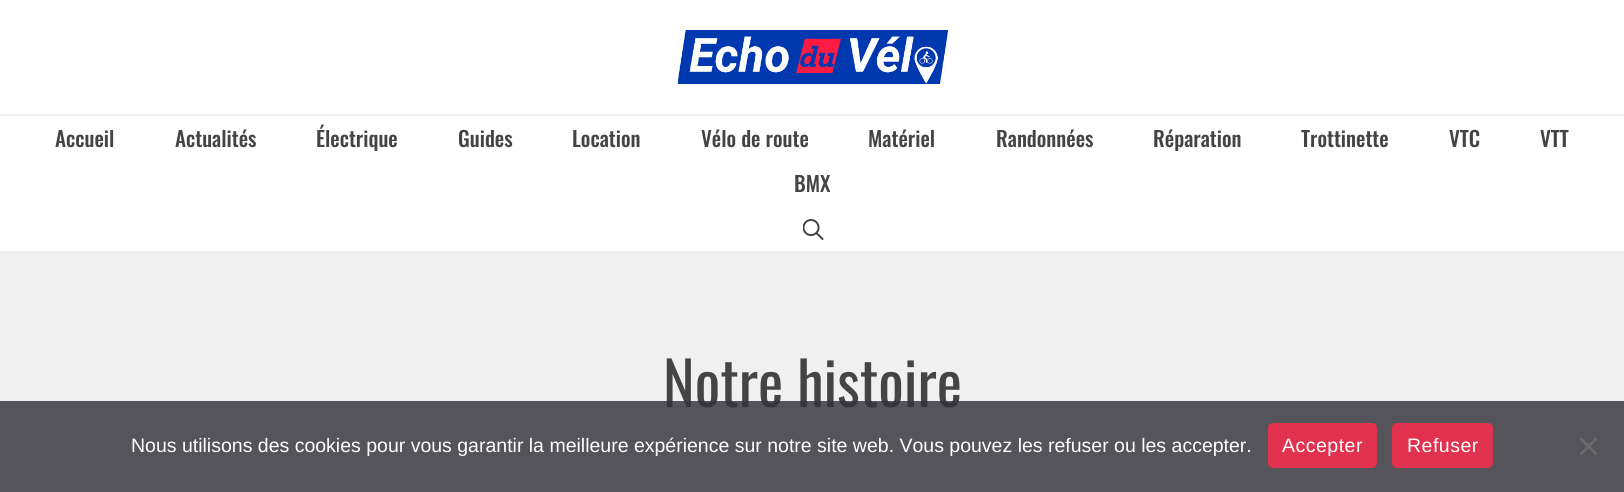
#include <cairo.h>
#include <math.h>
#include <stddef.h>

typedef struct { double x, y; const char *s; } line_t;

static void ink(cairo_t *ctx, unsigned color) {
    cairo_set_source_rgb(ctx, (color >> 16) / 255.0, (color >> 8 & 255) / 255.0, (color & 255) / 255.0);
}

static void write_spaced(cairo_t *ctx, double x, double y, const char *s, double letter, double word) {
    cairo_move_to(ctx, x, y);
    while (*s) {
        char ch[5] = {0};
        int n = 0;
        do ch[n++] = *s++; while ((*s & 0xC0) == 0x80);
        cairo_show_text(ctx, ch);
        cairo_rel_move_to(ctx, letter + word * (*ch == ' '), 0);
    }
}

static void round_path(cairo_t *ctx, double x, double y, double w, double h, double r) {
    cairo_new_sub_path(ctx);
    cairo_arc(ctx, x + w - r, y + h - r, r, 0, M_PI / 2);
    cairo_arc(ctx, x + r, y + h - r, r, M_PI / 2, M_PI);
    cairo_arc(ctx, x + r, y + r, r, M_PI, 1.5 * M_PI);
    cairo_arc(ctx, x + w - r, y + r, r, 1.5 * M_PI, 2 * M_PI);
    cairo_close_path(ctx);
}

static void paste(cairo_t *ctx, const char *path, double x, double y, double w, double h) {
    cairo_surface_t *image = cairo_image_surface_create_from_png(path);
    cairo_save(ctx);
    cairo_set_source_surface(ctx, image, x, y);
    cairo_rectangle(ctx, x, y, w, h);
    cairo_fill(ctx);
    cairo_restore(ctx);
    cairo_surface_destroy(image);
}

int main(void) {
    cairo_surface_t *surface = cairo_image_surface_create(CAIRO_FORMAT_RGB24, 1624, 492);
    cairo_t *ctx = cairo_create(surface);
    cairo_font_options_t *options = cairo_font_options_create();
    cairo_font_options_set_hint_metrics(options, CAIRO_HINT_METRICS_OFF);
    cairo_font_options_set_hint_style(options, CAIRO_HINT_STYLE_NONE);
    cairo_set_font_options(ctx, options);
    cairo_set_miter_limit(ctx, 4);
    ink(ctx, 0xFFFFFF);
    cairo_paint(ctx);
    ink(ctx, 0xF0F0F0);
    cairo_rectangle(ctx, 0, 114, 1624, 2);
    cairo_fill(ctx);
    paste(ctx, "media/1.png", 678, 30, 270, 54);
    cairo_select_font_face(ctx, "Oswald Medium", CAIRO_FONT_SLANT_NORMAL, CAIRO_FONT_WEIGHT_NORMAL);
    cairo_set_font_size(ctx, 21);
    ink(ctx, 0x444444);
    {
        static const line_t items[] = {
            {55, 147, "Accueil"},
            {175, 147, "Actualités"},
            {316, 147, "Électrique"},
            {458, 147, "Guides"},
            {572, 147, "Location"},
            {701, 147, "Vélo de route"},
            {868, 147, "Matériel"},
            {996, 147, "Randonnées"},
            {1153, 147, "Réparation"},
            {1301, 147, "Trottinette"},
            {1449, 147, "VTC"},
            {1540, 147, "VTT"},
            {794, 192, "BMX"},
        };
        for (size_t i = 0; i < sizeof items / sizeof *items; i++) {
            cairo_move_to(ctx, items[i].x, items[i].y);
            cairo_show_text(ctx, items[i].s);
        }
    }
    paste(ctx, "media/2.png", 803, 219, 21, 21);
    ink(ctx, 0xF0F0F0);
    cairo_rectangle(ctx, 0, 251, 1624, 241);
    cairo_fill(ctx);
    cairo_select_font_face(ctx, "Oswald", CAIRO_FONT_SLANT_NORMAL, CAIRO_FONT_WEIGHT_NORMAL);
    cairo_set_font_size(ctx, 60);
    ink(ctx, 0x444444);
    cairo_move_to(ctx, 663, 407);
    cairo_show_text(ctx, "Notre histoire");
    cairo_set_source_rgba(ctx, 0.196, 0.196, 0.227, 0.82);
    cairo_rectangle(ctx, 0, 401, 1624, 91);
    cairo_fill(ctx);
    cairo_select_font_face(ctx, "Liberation Sans", CAIRO_FONT_SLANT_NORMAL, CAIRO_FONT_WEIGHT_NORMAL);
    cairo_set_font_size(ctx, 19.5);
    ink(ctx, 0xFFFFFF);
    cairo_move_to(ctx, 131, 452);
    cairo_show_text(ctx, "Nous utilisons des cookies pour vous garantir la meilleure expérience sur notre site web. Vous pouvez les refuser ou les accepter.");
    ink(ctx, 0xE0314F);
    round_path(ctx, 1268, 423, 109, 45, 5);
    cairo_fill(ctx);
    ink(ctx, 0xFFFFFF);
    write_spaced(ctx, 1282, 452, "Accepter", 0.5, 0);
    ink(ctx, 0xE0314F);
    round_path(ctx, 1392, 423, 101, 45, 5);
    cairo_fill(ctx);
    ink(ctx, 0xFFFFFF);
    write_spaced(ctx, 1407, 452, "Refuser", 0.5, 0);
    ink(ctx, 0x6A6A6D);
    cairo_new_path(ctx);
    cairo_move_to(ctx, 1595.5, 437.5);
    cairo_line_to(ctx, 1597.5, 439.5);
    cairo_line_to(ctx, 1581.5, 455.5);
    cairo_line_to(ctx, 1579.5, 453.5);
    cairo_close_path(ctx);
    cairo_fill(ctx);
    cairo_new_path(ctx);
    cairo_move_to(ctx, 1579.5, 439.5);
    cairo_line_to(ctx, 1581.5, 437.5);
    cairo_line_to(ctx, 1597.5, 453.5);
    cairo_line_to(ctx, 1595.5, 455.5);
    cairo_close_path(ctx);
    cairo_fill(ctx);
    cairo_surface_write_to_png(surface, "image.png");
    cairo_font_options_destroy(options);
    cairo_destroy(ctx);
    cairo_surface_destroy(surface);
    return 0;
}
